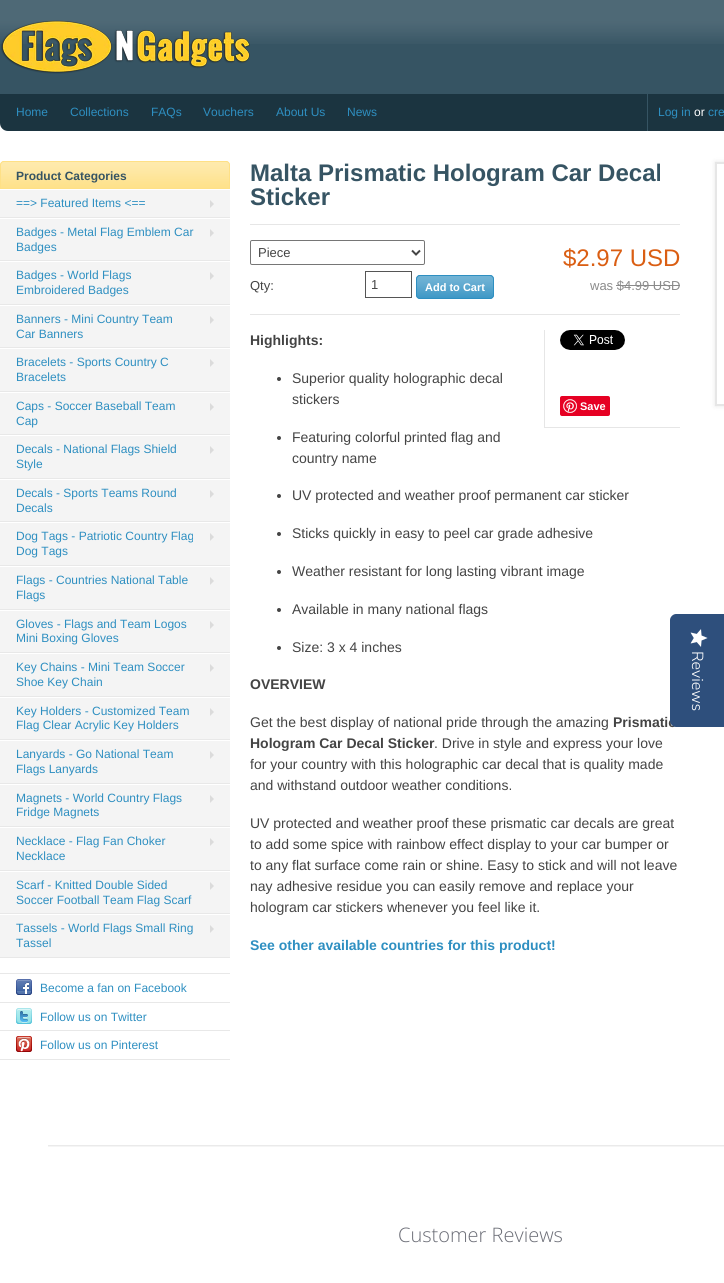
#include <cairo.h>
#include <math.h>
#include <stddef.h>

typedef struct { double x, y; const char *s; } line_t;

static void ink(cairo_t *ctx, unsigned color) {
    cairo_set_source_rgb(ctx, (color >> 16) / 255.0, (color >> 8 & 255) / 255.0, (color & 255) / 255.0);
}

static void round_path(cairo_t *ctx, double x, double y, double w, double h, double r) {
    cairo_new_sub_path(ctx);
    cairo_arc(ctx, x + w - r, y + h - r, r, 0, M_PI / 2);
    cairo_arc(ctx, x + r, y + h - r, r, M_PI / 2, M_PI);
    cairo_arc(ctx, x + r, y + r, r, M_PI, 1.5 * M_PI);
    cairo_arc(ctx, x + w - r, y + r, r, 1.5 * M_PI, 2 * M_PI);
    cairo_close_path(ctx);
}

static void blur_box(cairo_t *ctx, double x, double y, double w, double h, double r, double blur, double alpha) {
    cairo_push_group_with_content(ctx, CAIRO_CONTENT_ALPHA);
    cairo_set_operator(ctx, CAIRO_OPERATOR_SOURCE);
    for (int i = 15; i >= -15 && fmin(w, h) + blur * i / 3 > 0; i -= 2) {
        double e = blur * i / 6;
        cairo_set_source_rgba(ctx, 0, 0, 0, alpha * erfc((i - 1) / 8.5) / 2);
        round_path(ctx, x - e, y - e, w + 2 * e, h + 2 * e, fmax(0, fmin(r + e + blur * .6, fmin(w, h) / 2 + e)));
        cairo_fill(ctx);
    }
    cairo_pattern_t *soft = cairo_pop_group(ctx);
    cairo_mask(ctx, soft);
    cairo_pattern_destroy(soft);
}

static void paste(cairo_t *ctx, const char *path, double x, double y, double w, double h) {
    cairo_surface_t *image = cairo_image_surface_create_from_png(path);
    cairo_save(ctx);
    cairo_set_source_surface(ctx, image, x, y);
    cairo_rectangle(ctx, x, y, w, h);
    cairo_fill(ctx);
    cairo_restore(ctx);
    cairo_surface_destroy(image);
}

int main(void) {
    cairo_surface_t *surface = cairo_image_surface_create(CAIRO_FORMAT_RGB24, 724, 1283);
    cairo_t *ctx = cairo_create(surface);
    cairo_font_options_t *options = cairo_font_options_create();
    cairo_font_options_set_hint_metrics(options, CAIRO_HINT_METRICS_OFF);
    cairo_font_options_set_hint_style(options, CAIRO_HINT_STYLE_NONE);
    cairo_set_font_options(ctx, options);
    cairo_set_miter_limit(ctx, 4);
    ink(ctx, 0x365463);
    cairo_paint(ctx);
    paste(ctx, "media/1.png", 0, 0, 724, 44);
    paste(ctx, "media/2.png", 1, 20, 249, 54);
    ink(ctx, 0xFFFFFF);
    cairo_rectangle(ctx, 0, 123, 724, 1160);
    cairo_fill(ctx);
    ink(ctx, 0x1B3440);
    cairo_new_path(ctx);
    cairo_move_to(ctx, 0, 94);
    cairo_line_to(ctx, 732, 94);
    cairo_line_to(ctx, 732, 123);
    cairo_curve_to(ctx, 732, 127.5, 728.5, 131, 724, 131);
    cairo_line_to(ctx, 8, 131);
    cairo_curve_to(ctx, 3.5, 131, 0, 127.5, 0, 123);
    cairo_close_path(ctx);
    cairo_fill(ctx);
    cairo_select_font_face(ctx, "Liberation Sans", CAIRO_FONT_SLANT_NORMAL, CAIRO_FONT_WEIGHT_NORMAL);
    cairo_set_font_size(ctx, 12);
    ink(ctx, 0x2E8FC1);
    {
        static const line_t items[] = {
            {16, 116, "Home"},
            {70, 116, "Collections"},
            {151, 116, "FAQs"},
            {203, 116, "Vouchers"},
            {276, 116, "About Us"},
            {347, 116, "News"},
        };
        for (size_t i = 0; i < sizeof items / sizeof *items; i++) {
            cairo_move_to(ctx, items[i].x, items[i].y);
            cairo_show_text(ctx, items[i].s);
        }
    }
    ink(ctx, 0x365463);
    cairo_rectangle(ctx, 647, 94, 1, 37);
    cairo_fill(ctx);
    ink(ctx, 0x2E8FC1);
    cairo_move_to(ctx, 658, 116);
    cairo_show_text(ctx, "Log in");
    ink(ctx, 0xFFFFFF);
    cairo_move_to(ctx, 694, 116);
    cairo_show_text(ctx, "or");
    ink(ctx, 0x2E8FC1);
    cairo_move_to(ctx, 708, 116);
    cairo_show_text(ctx, "cre");
    ink(ctx, 0xFEE086);
    cairo_new_path(ctx);
    cairo_move_to(ctx, 4, 161);
    cairo_line_to(ctx, 226, 161);
    cairo_curve_to(ctx, 228, 161, 230, 163, 230, 165);
    cairo_line_to(ctx, 230, 189);
    cairo_line_to(ctx, 0, 189);
    cairo_line_to(ctx, 0, 165);
    cairo_curve_to(ctx, 0, 163, 2, 161, 4, 161);
    cairo_close_path(ctx);
    cairo_fill(ctx);
    paste(ctx, "media/3.png", 0, 162, 230, 26);
    cairo_new_path(ctx);
    cairo_move_to(ctx, 4, 161.5);
    cairo_line_to(ctx, 226, 161.5);
    cairo_curve_to(ctx, 228, 161.5, 229.5, 163, 229.5, 165);
    cairo_line_to(ctx, 229.5, 188.5);
    cairo_line_to(ctx, 0.5, 188.5);
    cairo_line_to(ctx, 0.5, 165);
    cairo_curve_to(ctx, 0.5, 163, 2, 161.5, 4, 161.5);
    cairo_close_path(ctx);
    cairo_set_line_width(ctx, 1);
    cairo_stroke(ctx);
    cairo_select_font_face(ctx, "Liberation Sans", CAIRO_FONT_SLANT_NORMAL, CAIRO_FONT_WEIGHT_BOLD);
    ink(ctx, 0x365463);
    cairo_move_to(ctx, 16, 180);
    cairo_show_text(ctx, "Product Categories");
    ink(ctx, 0xF4F4F4);
    cairo_rectangle(ctx, 0, 190, 230, 27);
    cairo_fill(ctx);
    ink(ctx, 0xE8E8E8);
    cairo_rectangle(ctx, 0, 217, 230, 1);
    cairo_fill(ctx);
    cairo_select_font_face(ctx, "Liberation Sans", CAIRO_FONT_SLANT_NORMAL, CAIRO_FONT_WEIGHT_NORMAL);
    ink(ctx, 0x2E8FC1);
    cairo_move_to(ctx, 16, 207);
    cairo_show_text(ctx, "==> Featured Items <==");
    ink(ctx, 0xDBDBDB);
    cairo_new_path(ctx);
    cairo_move_to(ctx, 210, 208);
    cairo_line_to(ctx, 210, 200);
    cairo_line_to(ctx, 214, 204);
    cairo_close_path(ctx);
    cairo_fill(ctx);
    ink(ctx, 0xF4F4F4);
    cairo_rectangle(ctx, 0, 219, 230, 41);
    cairo_fill(ctx);
    ink(ctx, 0xE8E8E8);
    cairo_rectangle(ctx, 0, 260, 230, 1);
    cairo_fill(ctx);
    ink(ctx, 0x2E8FC1);
    cairo_move_to(ctx, 16, 236);
    cairo_show_text(ctx, "Badges - Metal Flag Emblem Car");
    ink(ctx, 0xDBDBDB);
    cairo_new_path(ctx);
    cairo_move_to(ctx, 210, 237);
    cairo_line_to(ctx, 210, 229);
    cairo_line_to(ctx, 214, 233);
    cairo_close_path(ctx);
    cairo_fill(ctx);
    ink(ctx, 0x2E8FC1);
    cairo_move_to(ctx, 16, 251);
    cairo_show_text(ctx, "Badges");
    ink(ctx, 0xF4F4F4);
    cairo_rectangle(ctx, 0, 262, 230, 42);
    cairo_fill(ctx);
    ink(ctx, 0xE8E8E8);
    cairo_rectangle(ctx, 0, 304, 230, 1);
    cairo_fill(ctx);
    ink(ctx, 0x2E8FC1);
    cairo_move_to(ctx, 16, 279);
    cairo_show_text(ctx, "Badges - World Flags");
    ink(ctx, 0xDBDBDB);
    cairo_new_path(ctx);
    cairo_move_to(ctx, 210, 280);
    cairo_line_to(ctx, 210, 272);
    cairo_line_to(ctx, 214, 276);
    cairo_close_path(ctx);
    cairo_fill(ctx);
    ink(ctx, 0x2E8FC1);
    cairo_move_to(ctx, 16, 294);
    cairo_show_text(ctx, "Embroidered Badges");
    ink(ctx, 0xF4F4F4);
    cairo_rectangle(ctx, 0, 306, 230, 41);
    cairo_fill(ctx);
    ink(ctx, 0xE8E8E8);
    cairo_rectangle(ctx, 0, 347, 230, 1);
    cairo_fill(ctx);
    ink(ctx, 0x2E8FC1);
    cairo_move_to(ctx, 16, 323);
    cairo_show_text(ctx, "Banners - Mini Country Team");
    ink(ctx, 0xDBDBDB);
    cairo_new_path(ctx);
    cairo_move_to(ctx, 210, 324);
    cairo_line_to(ctx, 210, 316);
    cairo_line_to(ctx, 214, 320);
    cairo_close_path(ctx);
    cairo_fill(ctx);
    ink(ctx, 0x2E8FC1);
    cairo_move_to(ctx, 16, 338);
    cairo_show_text(ctx, "Car Banners");
    ink(ctx, 0xF4F4F4);
    cairo_rectangle(ctx, 0, 349, 230, 42);
    cairo_fill(ctx);
    ink(ctx, 0xE8E8E8);
    cairo_rectangle(ctx, 0, 391, 230, 1);
    cairo_fill(ctx);
    ink(ctx, 0x2E8FC1);
    cairo_move_to(ctx, 16, 366);
    cairo_show_text(ctx, "Bracelets - Sports Country C");
    ink(ctx, 0xDBDBDB);
    cairo_new_path(ctx);
    cairo_move_to(ctx, 210, 367);
    cairo_line_to(ctx, 210, 359);
    cairo_line_to(ctx, 214, 363);
    cairo_close_path(ctx);
    cairo_fill(ctx);
    ink(ctx, 0x2E8FC1);
    cairo_move_to(ctx, 16, 381);
    cairo_show_text(ctx, "Bracelets");
    ink(ctx, 0xF4F4F4);
    cairo_rectangle(ctx, 0, 393, 230, 41);
    cairo_fill(ctx);
    ink(ctx, 0xE8E8E8);
    cairo_rectangle(ctx, 0, 434, 230, 1);
    cairo_fill(ctx);
    ink(ctx, 0x2E8FC1);
    cairo_move_to(ctx, 16, 410);
    cairo_show_text(ctx, "Caps - Soccer Baseball Team");
    ink(ctx, 0xDBDBDB);
    cairo_new_path(ctx);
    cairo_move_to(ctx, 210, 411);
    cairo_line_to(ctx, 210, 403);
    cairo_line_to(ctx, 214, 407);
    cairo_close_path(ctx);
    cairo_fill(ctx);
    ink(ctx, 0x2E8FC1);
    cairo_move_to(ctx, 16, 425);
    cairo_show_text(ctx, "Cap");
    ink(ctx, 0xF4F4F4);
    cairo_rectangle(ctx, 0, 436, 230, 42);
    cairo_fill(ctx);
    ink(ctx, 0xE8E8E8);
    cairo_rectangle(ctx, 0, 478, 230, 1);
    cairo_fill(ctx);
    ink(ctx, 0x2E8FC1);
    cairo_move_to(ctx, 16, 453);
    cairo_show_text(ctx, "Decals - National Flags Shield");
    ink(ctx, 0xDBDBDB);
    cairo_new_path(ctx);
    cairo_move_to(ctx, 210, 454);
    cairo_line_to(ctx, 210, 446);
    cairo_line_to(ctx, 214, 450);
    cairo_close_path(ctx);
    cairo_fill(ctx);
    ink(ctx, 0x2E8FC1);
    cairo_move_to(ctx, 16, 468);
    cairo_show_text(ctx, "Style");
    ink(ctx, 0xF4F4F4);
    cairo_rectangle(ctx, 0, 480, 230, 41);
    cairo_fill(ctx);
    ink(ctx, 0xE8E8E8);
    cairo_rectangle(ctx, 0, 521, 230, 1);
    cairo_fill(ctx);
    ink(ctx, 0x2E8FC1);
    cairo_move_to(ctx, 16, 497);
    cairo_show_text(ctx, "Decals - Sports Teams Round");
    ink(ctx, 0xDBDBDB);
    cairo_new_path(ctx);
    cairo_move_to(ctx, 210, 498);
    cairo_line_to(ctx, 210, 490);
    cairo_line_to(ctx, 214, 494);
    cairo_close_path(ctx);
    cairo_fill(ctx);
    ink(ctx, 0x2E8FC1);
    cairo_move_to(ctx, 16, 512);
    cairo_show_text(ctx, "Decals");
    ink(ctx, 0xF4F4F4);
    cairo_rectangle(ctx, 0, 523, 230, 42);
    cairo_fill(ctx);
    ink(ctx, 0xE8E8E8);
    cairo_rectangle(ctx, 0, 565, 230, 1);
    cairo_fill(ctx);
    ink(ctx, 0x2E8FC1);
    cairo_move_to(ctx, 16, 540);
    cairo_show_text(ctx, "Dog Tags - Patriotic Country Flag");
    ink(ctx, 0xDBDBDB);
    cairo_new_path(ctx);
    cairo_move_to(ctx, 210, 541);
    cairo_line_to(ctx, 210, 533);
    cairo_line_to(ctx, 214, 537);
    cairo_close_path(ctx);
    cairo_fill(ctx);
    ink(ctx, 0x2E8FC1);
    cairo_move_to(ctx, 16, 555);
    cairo_show_text(ctx, "Dog Tags");
    ink(ctx, 0xF4F4F4);
    cairo_rectangle(ctx, 0, 567, 230, 42);
    cairo_fill(ctx);
    ink(ctx, 0xE8E8E8);
    cairo_rectangle(ctx, 0, 609, 230, 1);
    cairo_fill(ctx);
    ink(ctx, 0x2E8FC1);
    cairo_move_to(ctx, 16, 584);
    cairo_show_text(ctx, "Flags - Countries National Table");
    ink(ctx, 0xDBDBDB);
    cairo_new_path(ctx);
    cairo_move_to(ctx, 210, 585);
    cairo_line_to(ctx, 210, 577);
    cairo_line_to(ctx, 214, 581);
    cairo_close_path(ctx);
    cairo_fill(ctx);
    ink(ctx, 0x2E8FC1);
    cairo_move_to(ctx, 16, 599);
    cairo_show_text(ctx, "Flags");
    ink(ctx, 0xF4F4F4);
    cairo_rectangle(ctx, 0, 611, 230, 41);
    cairo_fill(ctx);
    ink(ctx, 0xE8E8E8);
    cairo_rectangle(ctx, 0, 652, 230, 1);
    cairo_fill(ctx);
    ink(ctx, 0x2E8FC1);
    cairo_move_to(ctx, 16, 628);
    cairo_show_text(ctx, "Gloves - Flags and Team Logos");
    ink(ctx, 0xDBDBDB);
    cairo_new_path(ctx);
    cairo_move_to(ctx, 210, 629);
    cairo_line_to(ctx, 210, 621);
    cairo_line_to(ctx, 214, 625);
    cairo_close_path(ctx);
    cairo_fill(ctx);
    ink(ctx, 0x2E8FC1);
    cairo_move_to(ctx, 16, 642);
    cairo_show_text(ctx, "Mini Boxing Gloves");
    ink(ctx, 0xF4F4F4);
    cairo_rectangle(ctx, 0, 654, 230, 42);
    cairo_fill(ctx);
    ink(ctx, 0xE8E8E8);
    cairo_rectangle(ctx, 0, 696, 230, 1);
    cairo_fill(ctx);
    ink(ctx, 0x2E8FC1);
    cairo_move_to(ctx, 16, 671);
    cairo_show_text(ctx, "Key Chains - Mini Team Soccer");
    ink(ctx, 0xDBDBDB);
    cairo_new_path(ctx);
    cairo_move_to(ctx, 210, 672);
    cairo_line_to(ctx, 210, 664);
    cairo_line_to(ctx, 214, 668);
    cairo_close_path(ctx);
    cairo_fill(ctx);
    ink(ctx, 0x2E8FC1);
    cairo_move_to(ctx, 16, 686);
    cairo_show_text(ctx, "Shoe Key Chain");
    ink(ctx, 0xF4F4F4);
    cairo_rectangle(ctx, 0, 698, 230, 41);
    cairo_fill(ctx);
    ink(ctx, 0xE8E8E8);
    cairo_rectangle(ctx, 0, 739, 230, 1);
    cairo_fill(ctx);
    ink(ctx, 0x2E8FC1);
    cairo_move_to(ctx, 16, 715);
    cairo_show_text(ctx, "Key Holders - Customized Team");
    ink(ctx, 0xDBDBDB);
    cairo_new_path(ctx);
    cairo_move_to(ctx, 210, 716);
    cairo_line_to(ctx, 210, 708);
    cairo_line_to(ctx, 214, 712);
    cairo_close_path(ctx);
    cairo_fill(ctx);
    ink(ctx, 0x2E8FC1);
    cairo_move_to(ctx, 16, 729);
    cairo_show_text(ctx, "Flag Clear Acrylic Key Holders");
    ink(ctx, 0xF4F4F4);
    cairo_rectangle(ctx, 0, 741, 230, 42);
    cairo_fill(ctx);
    ink(ctx, 0xE8E8E8);
    cairo_rectangle(ctx, 0, 783, 230, 1);
    cairo_fill(ctx);
    ink(ctx, 0x2E8FC1);
    cairo_move_to(ctx, 16, 758);
    cairo_show_text(ctx, "Lanyards - Go National Team");
    ink(ctx, 0xDBDBDB);
    cairo_new_path(ctx);
    cairo_move_to(ctx, 210, 759);
    cairo_line_to(ctx, 210, 751);
    cairo_line_to(ctx, 214, 755);
    cairo_close_path(ctx);
    cairo_fill(ctx);
    ink(ctx, 0x2E8FC1);
    cairo_move_to(ctx, 16, 773);
    cairo_show_text(ctx, "Flags Lanyards");
    ink(ctx, 0xF4F4F4);
    cairo_rectangle(ctx, 0, 785, 230, 41);
    cairo_fill(ctx);
    ink(ctx, 0xE8E8E8);
    cairo_rectangle(ctx, 0, 826, 230, 1);
    cairo_fill(ctx);
    ink(ctx, 0x2E8FC1);
    cairo_move_to(ctx, 16, 802);
    cairo_show_text(ctx, "Magnets - World Country Flags");
    ink(ctx, 0xDBDBDB);
    cairo_new_path(ctx);
    cairo_move_to(ctx, 210, 803);
    cairo_line_to(ctx, 210, 795);
    cairo_line_to(ctx, 214, 799);
    cairo_close_path(ctx);
    cairo_fill(ctx);
    ink(ctx, 0x2E8FC1);
    cairo_move_to(ctx, 16, 816);
    cairo_show_text(ctx, "Fridge Magnets");
    ink(ctx, 0xF4F4F4);
    cairo_rectangle(ctx, 0, 828, 230, 42);
    cairo_fill(ctx);
    ink(ctx, 0xE8E8E8);
    cairo_rectangle(ctx, 0, 870, 230, 1);
    cairo_fill(ctx);
    ink(ctx, 0x2E8FC1);
    cairo_move_to(ctx, 16, 845);
    cairo_show_text(ctx, "Necklace - Flag Fan Choker");
    ink(ctx, 0xDBDBDB);
    cairo_new_path(ctx);
    cairo_move_to(ctx, 210, 846);
    cairo_line_to(ctx, 210, 838);
    cairo_line_to(ctx, 214, 842);
    cairo_close_path(ctx);
    cairo_fill(ctx);
    ink(ctx, 0x2E8FC1);
    cairo_move_to(ctx, 16, 860);
    cairo_show_text(ctx, "Necklace");
    ink(ctx, 0xF4F4F4);
    cairo_rectangle(ctx, 0, 872, 230, 41);
    cairo_fill(ctx);
    ink(ctx, 0xE8E8E8);
    cairo_rectangle(ctx, 0, 913, 230, 1);
    cairo_fill(ctx);
    ink(ctx, 0x2E8FC1);
    cairo_move_to(ctx, 16, 889);
    cairo_show_text(ctx, "Scarf - Knitted Double Sided");
    ink(ctx, 0xDBDBDB);
    cairo_new_path(ctx);
    cairo_move_to(ctx, 210, 890);
    cairo_line_to(ctx, 210, 882);
    cairo_line_to(ctx, 214, 886);
    cairo_close_path(ctx);
    cairo_fill(ctx);
    ink(ctx, 0x2E8FC1);
    cairo_move_to(ctx, 16, 904);
    cairo_show_text(ctx, "Soccer Football Team Flag Scarf");
    ink(ctx, 0xF4F4F4);
    cairo_rectangle(ctx, 0, 915, 230, 42);
    cairo_fill(ctx);
    ink(ctx, 0xE8E8E8);
    cairo_rectangle(ctx, 0, 957, 230, 1);
    cairo_fill(ctx);
    ink(ctx, 0x2E8FC1);
    cairo_move_to(ctx, 16, 932);
    cairo_show_text(ctx, "Tassels - World Flags Small Ring");
    ink(ctx, 0xDBDBDB);
    cairo_new_path(ctx);
    cairo_move_to(ctx, 210, 933);
    cairo_line_to(ctx, 210, 925);
    cairo_line_to(ctx, 214, 929);
    cairo_close_path(ctx);
    cairo_fill(ctx);
    ink(ctx, 0x2E8FC1);
    cairo_move_to(ctx, 16, 947);
    cairo_show_text(ctx, "Tassel");
    ink(ctx, 0xE8E8E8);
    cairo_rectangle(ctx, 0, 973, 230, 1);
    cairo_fill(ctx);
    paste(ctx, "media/4.png", 16, 979, 16, 16);
    cairo_rectangle(ctx, 0, 1002, 230, 1);
    cairo_fill(ctx);
    ink(ctx, 0x2E8FC1);
    cairo_move_to(ctx, 40, 992);
    cairo_show_text(ctx, "Become a fan on Facebook");
    paste(ctx, "media/5.png", 16, 1008, 16, 16);
    ink(ctx, 0xE8E8E8);
    cairo_rectangle(ctx, 0, 1030, 230, 1);
    cairo_fill(ctx);
    ink(ctx, 0x2E8FC1);
    cairo_move_to(ctx, 40, 1021);
    cairo_show_text(ctx, "Follow us on Twitter");
    paste(ctx, "media/6.png", 16, 1036, 16, 16);
    ink(ctx, 0xE8E8E8);
    cairo_rectangle(ctx, 0, 1059, 230, 1);
    cairo_fill(ctx);
    ink(ctx, 0x2E8FC1);
    cairo_move_to(ctx, 40, 1049);
    cairo_show_text(ctx, "Follow us on Pinterest");
    ink(ctx, 0xE6E6E6);
    cairo_rectangle(ctx, 250, 224, 430, 1);
    cairo_fill(ctx);
    cairo_select_font_face(ctx, "Liberation Sans", CAIRO_FONT_SLANT_NORMAL, CAIRO_FONT_WEIGHT_BOLD);
    cairo_set_font_size(ctx, 24);
    ink(ctx, 0x365463);
    cairo_move_to(ctx, 250, 181);
    cairo_show_text(ctx, "Malta Prismatic Hologram Car Decal");
    cairo_move_to(ctx, 250, 205);
    cairo_show_text(ctx, "Sticker");
    ink(ctx, 0xE6E6E6);
    cairo_rectangle(ctx, 250, 314, 430, 1);
    cairo_fill(ctx);
    round_path(ctx, 250.5, 240.5, 174, 24, 1.5);
    ink(ctx, 0x767676);
    cairo_stroke(ctx);
    cairo_new_path(ctx);
    cairo_move_to(ctx, 412, 250.5);
    cairo_line_to(ctx, 416, 254.5);
    cairo_line_to(ctx, 420, 250.5);
    ink(ctx, 0x444444);
    cairo_set_line_width(ctx, 2);
    cairo_stroke(ctx);
    cairo_select_font_face(ctx, "Liberation Sans", CAIRO_FONT_SLANT_NORMAL, CAIRO_FONT_WEIGHT_NORMAL);
    cairo_set_font_size(ctx, 13);
    cairo_move_to(ctx, 258, 257);
    cairo_show_text(ctx, "Piece");
    cairo_move_to(ctx, 250, 290);
    cairo_show_text(ctx, "Qty:");
    cairo_rectangle(ctx, 365.5, 271.5, 46, 26);
    ink(ctx, 0x555555);
    cairo_set_line_width(ctx, 1);
    cairo_stroke(ctx);
    ink(ctx, 0x444444);
    cairo_move_to(ctx, 371, 289);
    cairo_show_text(ctx, "1");
    ink(ctx, 0x2E8FC1);
    round_path(ctx, 416, 275, 78, 24, 4);
    cairo_fill(ctx);
    paste(ctx, "media/7.png", 416, 276, 78, 23);
    round_path(ctx, 416.5, 275.5, 77, 23, 3.5);
    cairo_stroke(ctx);
    cairo_select_font_face(ctx, "Liberation Sans", CAIRO_FONT_SLANT_NORMAL, CAIRO_FONT_WEIGHT_BOLD);
    cairo_set_font_size(ctx, 11);
    ink(ctx, 0xFFFFFF);
    cairo_move_to(ctx, 425, 291);
    cairo_show_text(ctx, "Add to Cart");
    cairo_select_font_face(ctx, "Liberation Sans", CAIRO_FONT_SLANT_NORMAL, CAIRO_FONT_WEIGHT_NORMAL);
    cairo_set_font_size(ctx, 24);
    ink(ctx, 0xDA5E13);
    cairo_move_to(ctx, 563, 266);
    cairo_show_text(ctx, "$2.97 USD");
    cairo_set_font_size(ctx, 13);
    ink(ctx, 0x8A8A8A);
    cairo_move_to(ctx, 590, 290);
    cairo_show_text(ctx, "was $4.99 USD");
    cairo_rectangle(ctx, 616, 285, 64, 1);
    cairo_fill(ctx);
    cairo_select_font_face(ctx, "Liberation Sans", CAIRO_FONT_SLANT_NORMAL, CAIRO_FONT_WEIGHT_BOLD);
    cairo_set_font_size(ctx, 14);
    ink(ctx, 0x444444);
    cairo_move_to(ctx, 250, 345);
    cairo_show_text(ctx, "Highlights:");
    cairo_new_path(ctx);
    cairo_arc(ctx, 279, 379, 2, 0, 2 * M_PI);
    cairo_fill(ctx);
    cairo_select_font_face(ctx, "Liberation Sans", CAIRO_FONT_SLANT_NORMAL, CAIRO_FONT_WEIGHT_NORMAL);
    cairo_move_to(ctx, 292, 383);
    cairo_show_text(ctx, "Superior quality holographic decal");
    cairo_move_to(ctx, 292, 404);
    cairo_show_text(ctx, "stickers");
    cairo_new_path(ctx);
    cairo_arc(ctx, 279, 438, 2, 0, 2 * M_PI);
    cairo_fill(ctx);
    cairo_move_to(ctx, 292, 442);
    cairo_show_text(ctx, "Featuring colorful printed flag and");
    cairo_move_to(ctx, 292, 463);
    cairo_show_text(ctx, "country name");
    cairo_new_path(ctx);
    cairo_arc(ctx, 279, 496, 2, 0, 2 * M_PI);
    cairo_fill(ctx);
    cairo_move_to(ctx, 292, 500);
    cairo_show_text(ctx, "UV protected and weather proof permanent car sticker");
    cairo_new_path(ctx);
    cairo_arc(ctx, 279, 534, 2, 0, 2 * M_PI);
    cairo_fill(ctx);
    cairo_move_to(ctx, 292, 538);
    cairo_show_text(ctx, "Sticks quickly in easy to peel car grade adhesive");
    cairo_new_path(ctx);
    cairo_arc(ctx, 279, 572, 2, 0, 2 * M_PI);
    cairo_fill(ctx);
    cairo_move_to(ctx, 292, 576);
    cairo_show_text(ctx, "Weather resistant for long lasting vibrant image");
    cairo_new_path(ctx);
    cairo_arc(ctx, 279, 610, 2, 0, 2 * M_PI);
    cairo_fill(ctx);
    cairo_move_to(ctx, 292, 614);
    cairo_show_text(ctx, "Available in many national flags");
    cairo_new_path(ctx);
    cairo_arc(ctx, 279, 648, 2, 0, 2 * M_PI);
    cairo_fill(ctx);
    cairo_move_to(ctx, 292, 652);
    cairo_show_text(ctx, "Size: 3 x 4 inches");
    ink(ctx, 0xE6E6E6);
    cairo_rectangle(ctx, 544, 427, 136, 1);
    cairo_fill(ctx);
    cairo_rectangle(ctx, 544, 330, 1, 98);
    cairo_fill(ctx);
    paste(ctx, "media/8.png", 560, 330, 65, 20);
    ink(ctx, 0xE60023);
    round_path(ctx, 560, 396, 50, 20, 2);
    cairo_fill(ctx);
    paste(ctx, "media/9.png", 563, 399, 14, 14);
    cairo_select_font_face(ctx, "Liberation Sans", CAIRO_FONT_SLANT_NORMAL, CAIRO_FONT_WEIGHT_BOLD);
    cairo_set_font_size(ctx, 11);
    ink(ctx, 0xFFFFFF);
    cairo_move_to(ctx, 580, 410);
    cairo_show_text(ctx, "Save");
    cairo_set_font_size(ctx, 14);
    ink(ctx, 0x444444);
    cairo_move_to(ctx, 250, 689);
    cairo_show_text(ctx, "OVERVIEW");
    cairo_select_font_face(ctx, "Liberation Sans", CAIRO_FONT_SLANT_NORMAL, CAIRO_FONT_WEIGHT_NORMAL);
    cairo_move_to(ctx, 250, 727);
    cairo_show_text(ctx, "Get the best display of national pride through the amazing");
    cairo_select_font_face(ctx, "Liberation Sans", CAIRO_FONT_SLANT_NORMAL, CAIRO_FONT_WEIGHT_BOLD);
    cairo_move_to(ctx, 613, 727);
    cairo_show_text(ctx, "Prismatic");
    cairo_move_to(ctx, 250, 748);
    cairo_show_text(ctx, "Hologram Car Decal Sticker");
    cairo_select_font_face(ctx, "Liberation Sans", CAIRO_FONT_SLANT_NORMAL, CAIRO_FONT_WEIGHT_NORMAL);
    {
        static const line_t items[] = {
            {434, 748, ". Drive in style and express your love"},
            {250, 769, "for your country with this holographic car decal that is quality made"},
            {250, 790, "and withstand outdoor weather conditions."},
            {250, 828, "UV protected and weather proof these prismatic car decals are great"},
            {250, 849, "to add some spice with rainbow effect display to your car bumper or"},
            {250, 870, "to any flat surface come rain or shine. Easy to stick and will not leave"},
            {250, 891, "nay adhesive residue you can easily remove and replace your"},
            {250, 912, "hologram car stickers whenever you feel like it."},
        };
        for (size_t i = 0; i < sizeof items / sizeof *items; i++) {
            cairo_move_to(ctx, items[i].x, items[i].y);
            cairo_show_text(ctx, items[i].s);
        }
    }
    cairo_select_font_face(ctx, "Liberation Sans", CAIRO_FONT_SLANT_NORMAL, CAIRO_FONT_WEIGHT_BOLD);
    ink(ctx, 0x2E8FC1);
    cairo_move_to(ctx, 250, 950);
    cairo_show_text(ctx, "See other available countries for this product!");
    cairo_save(ctx);
    cairo_set_fill_rule(ctx, CAIRO_FILL_RULE_EVEN_ODD);
    cairo_new_path(ctx);
    cairo_move_to(ctx, 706, 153);
    cairo_line_to(ctx, 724, 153);
    cairo_line_to(ctx, 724, 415);
    cairo_line_to(ctx, 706, 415);
    cairo_close_path(ctx);
    cairo_move_to(ctx, 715, 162);
    cairo_line_to(ctx, 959, 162);
    cairo_line_to(ctx, 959, 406);
    cairo_line_to(ctx, 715, 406);
    cairo_close_path(ctx);
    cairo_clip(ctx);
    ink(ctx, 0x000000);
    blur_box(ctx, 715, 162, 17, 244, 0, 2.5, 0.1);
    cairo_restore(ctx);
    cairo_rectangle(ctx, 716, 163, 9, 242);
    ink(ctx, 0xE6E6E6);
    cairo_set_line_width(ctx, 2);
    cairo_stroke(ctx);
    paste(ctx, "media/10.png", 48, 1145, 676, 2);
    cairo_select_font_face(ctx, "Open Sans Light", CAIRO_FONT_SLANT_NORMAL, CAIRO_FONT_WEIGHT_NORMAL);
    cairo_set_font_size(ctx, 20);
    ink(ctx, 0x6B6D76);
    cairo_move_to(ctx, 398, 1242);
    cairo_show_text(ctx, "Customer Reviews");
    ink(ctx, 0x2E4F7C);
    cairo_new_path(ctx);
    cairo_move_to(ctx, 724, 614);
    cairo_line_to(ctx, 724, 727);
    cairo_line_to(ctx, 676, 727);
    cairo_curve_to(ctx, 673, 727, 670, 724, 670, 721);
    cairo_line_to(ctx, 670, 620);
    cairo_curve_to(ctx, 670, 617, 673, 614, 676, 614);
    cairo_close_path(ctx);
    cairo_fill(ctx);
    paste(ctx, "media/11.png", 690, 629, 18, 18);
    cairo_select_font_face(ctx, "Nunito Sans Light", CAIRO_FONT_SLANT_NORMAL, CAIRO_FONT_WEIGHT_NORMAL);
    cairo_set_font_size(ctx, 16);
    ink(ctx, 0xFFFFFF);
    cairo_save(ctx);
    cairo_translate(ctx, 692, 651);
    cairo_rotate(ctx, 90 * M_PI / 180);
    cairo_move_to(ctx, 0, 0);
    cairo_show_text(ctx, "Reviews");
    cairo_restore(ctx);
    cairo_surface_write_to_png(surface, "image.png");
    cairo_font_options_destroy(options);
    cairo_destroy(ctx);
    cairo_surface_destroy(surface);
    return 0;
}
